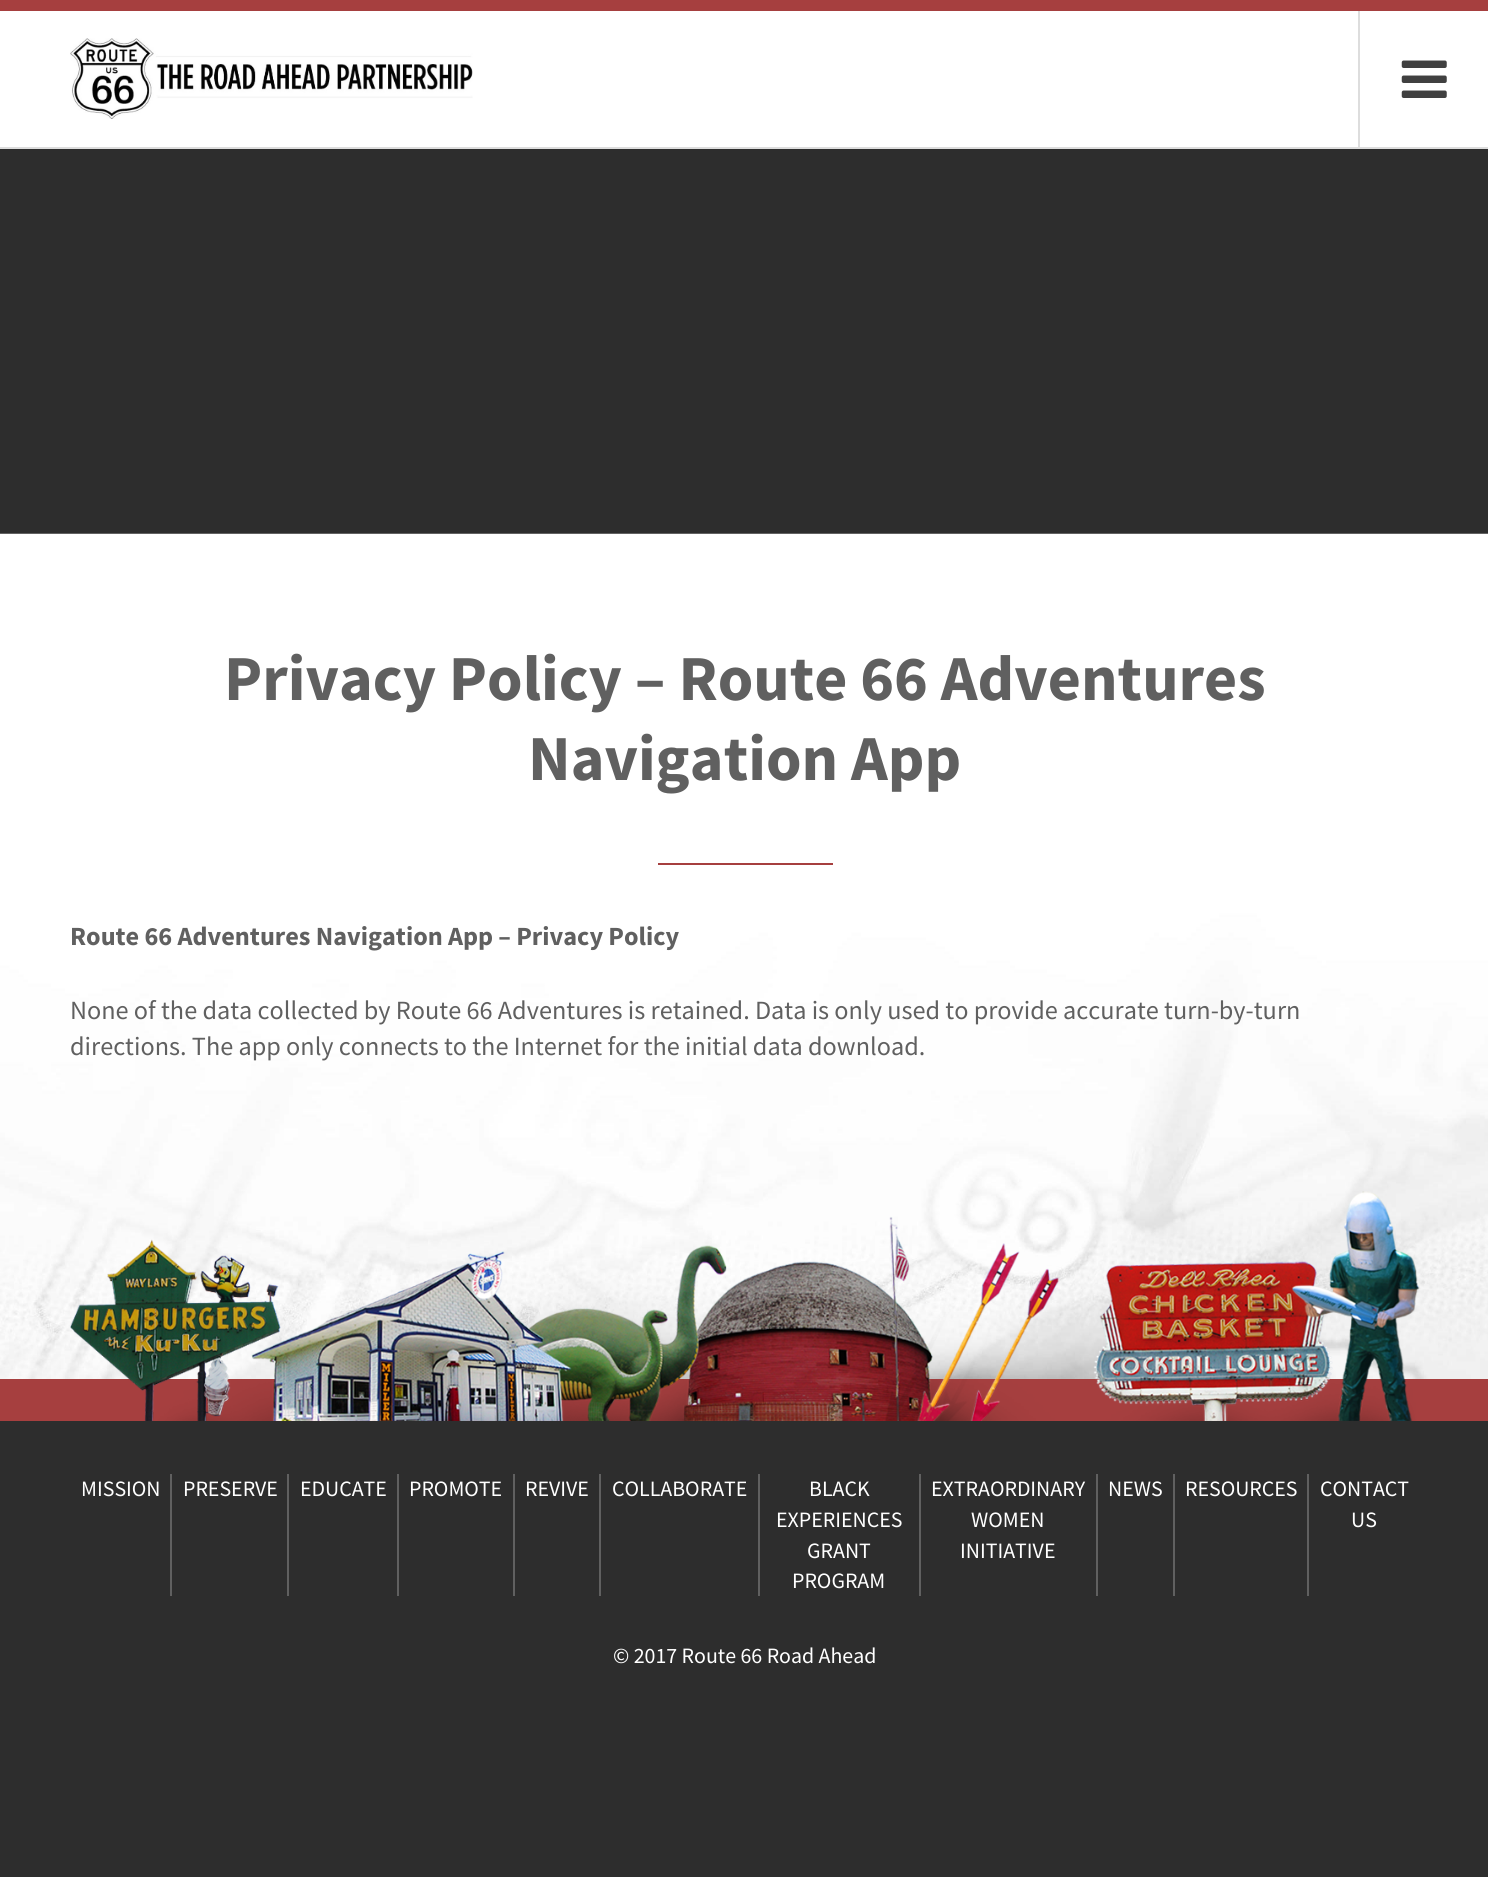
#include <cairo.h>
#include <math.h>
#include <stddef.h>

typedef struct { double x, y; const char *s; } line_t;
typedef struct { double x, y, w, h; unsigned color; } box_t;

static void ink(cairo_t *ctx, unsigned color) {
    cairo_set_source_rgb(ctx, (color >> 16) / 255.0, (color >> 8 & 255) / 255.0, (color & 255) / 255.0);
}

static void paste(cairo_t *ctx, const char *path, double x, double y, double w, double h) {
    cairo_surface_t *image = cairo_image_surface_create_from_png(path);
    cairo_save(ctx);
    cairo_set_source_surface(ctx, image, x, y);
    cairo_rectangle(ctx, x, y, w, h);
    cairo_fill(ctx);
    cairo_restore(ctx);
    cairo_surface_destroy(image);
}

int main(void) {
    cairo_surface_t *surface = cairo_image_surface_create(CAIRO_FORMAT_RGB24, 1488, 1877);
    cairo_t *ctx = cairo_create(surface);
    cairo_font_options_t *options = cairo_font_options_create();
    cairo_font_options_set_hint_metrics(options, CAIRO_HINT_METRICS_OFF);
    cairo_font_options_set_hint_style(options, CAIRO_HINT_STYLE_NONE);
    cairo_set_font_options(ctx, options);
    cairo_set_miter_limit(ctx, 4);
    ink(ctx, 0x2D2D2D);
    cairo_paint(ctx);
    {
        static const box_t items[] = {
            {0, 11, 1488, 136, 0xFFFFFF},
            {0, 147, 1488, 2, 0xDDDDDD},
            {0, 0, 1488, 11, 0xA63F3F},
        };
        for (size_t i = 0; i < sizeof items / sizeof *items; i++) {
            ink(ctx, items[i].color);
            cairo_rectangle(ctx, items[i].x, items[i].y, items[i].w, items[i].h);
            cairo_fill(ctx);
        }
    }
    paste(ctx, "media/1.png", 70, 38, 403, 81);
    ink(ctx, 0xDDDDDD);
    cairo_rectangle(ctx, 1358, 11, 2, 136);
    cairo_fill(ctx);
    paste(ctx, "media/2.png", 1401, 60, 46, 38);
    paste(ctx, "media/3.png", 0, 533, 1488, 846);
    ink(ctx, 0xA63F3F);
    cairo_rectangle(ctx, 0, 1379, 1488, 42);
    cairo_fill(ctx);
    cairo_select_font_face(ctx, "Source Sans Pro", CAIRO_FONT_SLANT_NORMAL, CAIRO_FONT_WEIGHT_BOLD);
    cairo_set_font_size(ctx, 64.1);
    ink(ctx, 0x606060);
    cairo_move_to(ctx, 224, 700);
    cairo_show_text(ctx, "Privacy Policy – Route 66 Adventures");
    cairo_move_to(ctx, 528, 780);
    cairo_show_text(ctx, "Navigation App");
    ink(ctx, 0xA63F3F);
    cairo_rectangle(ctx, 658, 863, 175, 2);
    cairo_fill(ctx);
    cairo_set_font_size(ctx, 26.25);
    ink(ctx, 0x606060);
    cairo_move_to(ctx, 70, 945);
    cairo_show_text(ctx, "Route 66 Adventures Navigation App – Privacy Policy");
    cairo_select_font_face(ctx, "Source Sans Pro", CAIRO_FONT_SLANT_NORMAL, CAIRO_FONT_WEIGHT_NORMAL);
    cairo_move_to(ctx, 70, 1019);
    cairo_show_text(ctx, "None of the data collected by Route 66 Adventures is retained. Data is only used to provide accurate turn-by-turn");
    cairo_move_to(ctx, 70, 1055);
    cairo_show_text(ctx, "directions. The app only connects to the Internet for the initial data download.");
    paste(ctx, "media/4.png", 70, 1191, 1350, 230);
    cairo_rectangle(ctx, 170, 1474, 2, 122);
    cairo_fill(ctx);
    cairo_set_font_size(ctx, 21.9);
    ink(ctx, 0xFFFFFF);
    cairo_move_to(ctx, 81, 1496);
    cairo_show_text(ctx, "MISSION");
    ink(ctx, 0x606060);
    cairo_rectangle(ctx, 287, 1474, 2, 122);
    cairo_fill(ctx);
    ink(ctx, 0xFFFFFF);
    cairo_move_to(ctx, 183, 1496);
    cairo_show_text(ctx, "PRESERVE");
    ink(ctx, 0x606060);
    cairo_rectangle(ctx, 397, 1474, 2, 122);
    cairo_fill(ctx);
    ink(ctx, 0xFFFFFF);
    cairo_move_to(ctx, 300, 1496);
    cairo_show_text(ctx, "EDUCATE");
    ink(ctx, 0x606060);
    cairo_rectangle(ctx, 513, 1474, 2, 122);
    cairo_fill(ctx);
    ink(ctx, 0xFFFFFF);
    cairo_move_to(ctx, 409, 1496);
    cairo_show_text(ctx, "PROMOTE");
    ink(ctx, 0x606060);
    cairo_rectangle(ctx, 599, 1474, 2, 122);
    cairo_fill(ctx);
    ink(ctx, 0xFFFFFF);
    cairo_move_to(ctx, 525, 1496);
    cairo_show_text(ctx, "REVIVE");
    ink(ctx, 0x606060);
    cairo_rectangle(ctx, 758, 1474, 2, 122);
    cairo_fill(ctx);
    ink(ctx, 0xFFFFFF);
    cairo_move_to(ctx, 612, 1496);
    cairo_show_text(ctx, "COLLABORATE");
    ink(ctx, 0x606060);
    cairo_rectangle(ctx, 919, 1474, 2, 122);
    cairo_fill(ctx);
    ink(ctx, 0xFFFFFF);
    {
        static const line_t items[] = {
            {809, 1496, "BLACK"},
            {776, 1527, "EXPERIENCES"},
            {807, 1558, "GRANT"},
            {792, 1588, "PROGRAM"},
        };
        for (size_t i = 0; i < sizeof items / sizeof *items; i++) {
            cairo_move_to(ctx, items[i].x, items[i].y);
            cairo_show_text(ctx, items[i].s);
        }
    }
    ink(ctx, 0x606060);
    cairo_rectangle(ctx, 1096, 1474, 2, 122);
    cairo_fill(ctx);
    ink(ctx, 0xFFFFFF);
    {
        static const line_t items[] = {
            {931, 1496, "EXTRAORDINARY"},
            {971, 1527, "WOMEN"},
            {960, 1558, "INITIATIVE"},
        };
        for (size_t i = 0; i < sizeof items / sizeof *items; i++) {
            cairo_move_to(ctx, items[i].x, items[i].y);
            cairo_show_text(ctx, items[i].s);
        }
    }
    ink(ctx, 0x606060);
    cairo_rectangle(ctx, 1173, 1474, 2, 122);
    cairo_fill(ctx);
    ink(ctx, 0xFFFFFF);
    cairo_move_to(ctx, 1108, 1496);
    cairo_show_text(ctx, "NEWS");
    ink(ctx, 0x606060);
    cairo_rectangle(ctx, 1307, 1474, 2, 122);
    cairo_fill(ctx);
    ink(ctx, 0xFFFFFF);
    {
        static const line_t items[] = {
            {1185, 1496, "RESOURCES"},
            {1320, 1496, "CONTACT"},
            {1351, 1527, "US"},
            {613, 1663, "© 2017 Route 66 Road Ahead"},
        };
        for (size_t i = 0; i < sizeof items / sizeof *items; i++) {
            cairo_move_to(ctx, items[i].x, items[i].y);
            cairo_show_text(ctx, items[i].s);
        }
    }
    cairo_surface_write_to_png(surface, "image.png");
    cairo_font_options_destroy(options);
    cairo_destroy(ctx);
    cairo_surface_destroy(surface);
    return 0;
}
